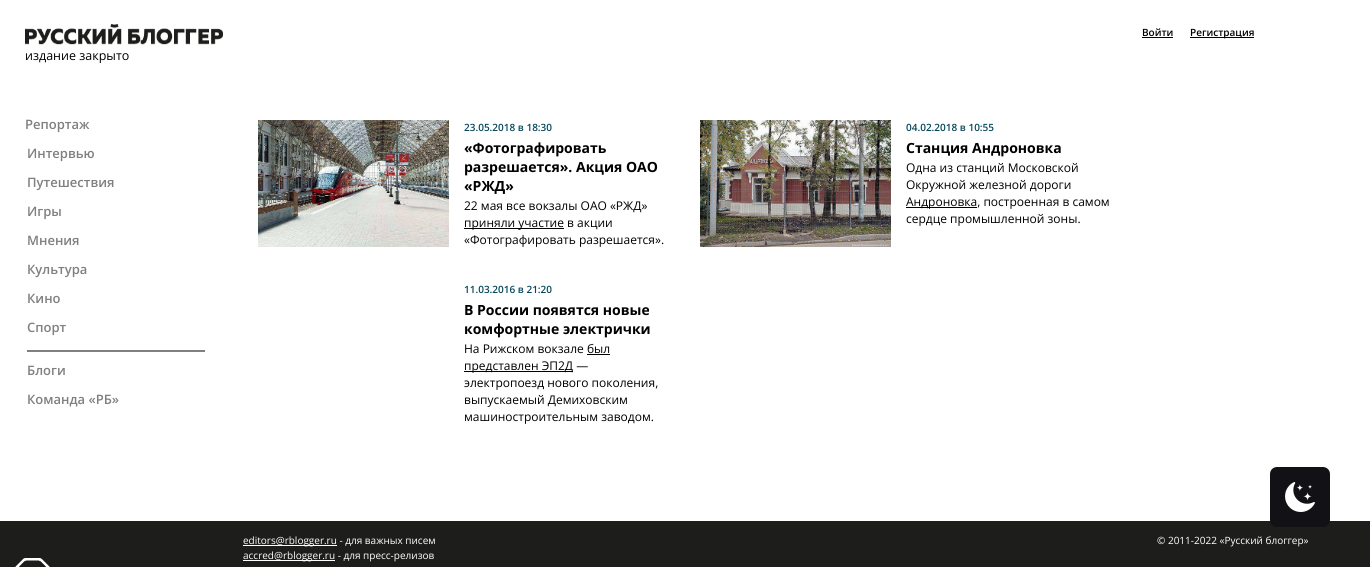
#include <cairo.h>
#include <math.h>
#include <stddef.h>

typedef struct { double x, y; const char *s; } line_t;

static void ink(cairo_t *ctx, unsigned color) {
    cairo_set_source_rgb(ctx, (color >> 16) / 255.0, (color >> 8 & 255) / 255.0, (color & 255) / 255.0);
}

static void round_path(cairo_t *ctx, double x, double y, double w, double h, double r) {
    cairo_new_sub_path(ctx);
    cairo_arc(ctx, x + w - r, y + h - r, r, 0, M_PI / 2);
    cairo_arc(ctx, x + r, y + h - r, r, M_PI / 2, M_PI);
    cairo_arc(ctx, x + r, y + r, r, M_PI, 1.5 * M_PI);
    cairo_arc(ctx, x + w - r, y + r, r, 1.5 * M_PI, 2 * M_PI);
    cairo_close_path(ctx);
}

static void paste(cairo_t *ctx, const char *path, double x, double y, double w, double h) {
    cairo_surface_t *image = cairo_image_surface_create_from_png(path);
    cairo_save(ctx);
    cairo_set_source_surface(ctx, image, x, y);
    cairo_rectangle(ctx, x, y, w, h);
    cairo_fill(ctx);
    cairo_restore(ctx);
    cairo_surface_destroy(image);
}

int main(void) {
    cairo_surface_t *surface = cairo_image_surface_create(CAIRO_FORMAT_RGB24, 1370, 567);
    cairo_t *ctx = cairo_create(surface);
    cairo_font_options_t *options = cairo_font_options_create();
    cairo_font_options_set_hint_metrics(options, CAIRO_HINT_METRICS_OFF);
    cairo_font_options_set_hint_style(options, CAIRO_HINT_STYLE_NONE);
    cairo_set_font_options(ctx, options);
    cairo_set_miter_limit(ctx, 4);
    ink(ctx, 0xFFFFFF);
    cairo_paint(ctx);
    cairo_select_font_face(ctx, "Open Sans SemiBold", CAIRO_FONT_SLANT_NORMAL, CAIRO_FONT_WEIGHT_NORMAL);
    cairo_set_font_size(ctx, 10);
    ink(ctx, 0x000000);
    cairo_move_to(ctx, 1142, 36);
    cairo_show_text(ctx, "Войти");
    cairo_rectangle(ctx, 1142, 37, 31, 1);
    cairo_fill(ctx);
    cairo_rectangle(ctx, 1190, 37, 64, 1);
    cairo_fill(ctx);
    cairo_move_to(ctx, 1190, 36);
    cairo_show_text(ctx, "Регистрация");
    paste(ctx, "media/1.png", 25, 24, 198, 21);
    cairo_select_font_face(ctx, "Open Sans", CAIRO_FONT_SLANT_NORMAL, CAIRO_FONT_WEIGHT_NORMAL);
    cairo_set_font_size(ctx, 12.5);
    cairo_move_to(ctx, 25, 60);
    cairo_show_text(ctx, "издание закрыто");
    cairo_select_font_face(ctx, "Open Sans SemiBold", CAIRO_FONT_SLANT_NORMAL, CAIRO_FONT_WEIGHT_NORMAL);
    cairo_set_font_size(ctx, 13);
    ink(ctx, 0x808080);
    {
        static const line_t items[] = {
            {25, 129, "Репортаж"},
            {27, 158, "Интервью"},
            {27, 187, "Путешествия"},
            {27, 216, "Игры"},
            {27, 245, "Мнения"},
            {27, 274, "Культура"},
            {27, 303, "Кино"},
            {27, 332, "Спорт"},
        };
        for (size_t i = 0; i < sizeof items / sizeof *items; i++) {
            cairo_move_to(ctx, items[i].x, items[i].y);
            cairo_show_text(ctx, items[i].s);
        }
    }
    cairo_rectangle(ctx, 27, 350, 178, 2);
    cairo_fill(ctx);
    cairo_move_to(ctx, 27, 375);
    cairo_show_text(ctx, "Блоги");
    cairo_move_to(ctx, 27, 404);
    cairo_show_text(ctx, "Команда «РБ»");
    paste(ctx, "media/2.png", 258, 120, 191, 127);
    cairo_set_font_size(ctx, 10);
    ink(ctx, 0x07485B);
    cairo_move_to(ctx, 464, 131);
    cairo_show_text(ctx, "23.05.2018 в 18:30");
    cairo_select_font_face(ctx, "Open Sans", CAIRO_FONT_SLANT_NORMAL, CAIRO_FONT_WEIGHT_BOLD);
    cairo_set_font_size(ctx, 14);
    ink(ctx, 0x000000);
    {
        static const line_t items[] = {
            {464, 153, "«Фотографировать"},
            {464, 172, "разрешается». Акция ОАО"},
            {464, 191, "«РЖД»"},
        };
        for (size_t i = 0; i < sizeof items / sizeof *items; i++) {
            cairo_move_to(ctx, items[i].x, items[i].y);
            cairo_show_text(ctx, items[i].s);
        }
    }
    cairo_select_font_face(ctx, "Open Sans", CAIRO_FONT_SLANT_NORMAL, CAIRO_FONT_WEIGHT_NORMAL);
    cairo_set_font_size(ctx, 12);
    cairo_move_to(ctx, 464, 210);
    cairo_show_text(ctx, "22 мая все вокзалы ОАО «РЖД»");
    cairo_rectangle(ctx, 464, 228, 100, 1);
    cairo_fill(ctx);
    cairo_move_to(ctx, 464, 227);
    cairo_show_text(ctx, "приняли участие в акции");
    cairo_move_to(ctx, 464, 244);
    cairo_show_text(ctx, "«Фотографировать разрешается».");
    paste(ctx, "media/3.png", 700, 120, 191, 127);
    cairo_select_font_face(ctx, "Open Sans SemiBold", CAIRO_FONT_SLANT_NORMAL, CAIRO_FONT_WEIGHT_NORMAL);
    cairo_set_font_size(ctx, 10);
    ink(ctx, 0x07485B);
    cairo_move_to(ctx, 906, 131);
    cairo_show_text(ctx, "04.02.2018 в 10:55");
    cairo_select_font_face(ctx, "Open Sans", CAIRO_FONT_SLANT_NORMAL, CAIRO_FONT_WEIGHT_BOLD);
    cairo_set_font_size(ctx, 14);
    ink(ctx, 0x000000);
    cairo_move_to(ctx, 906, 153);
    cairo_show_text(ctx, "Станция Андроновка");
    cairo_select_font_face(ctx, "Open Sans", CAIRO_FONT_SLANT_NORMAL, CAIRO_FONT_WEIGHT_NORMAL);
    cairo_set_font_size(ctx, 12);
    cairo_move_to(ctx, 906, 172);
    cairo_show_text(ctx, "Одна из станций Московской");
    cairo_move_to(ctx, 906, 189);
    cairo_show_text(ctx, "Окружной железной дороги");
    cairo_rectangle(ctx, 906, 207, 71, 1);
    cairo_fill(ctx);
    cairo_move_to(ctx, 906, 206);
    cairo_show_text(ctx, "Андроновка, построенная в самом");
    cairo_move_to(ctx, 906, 223);
    cairo_show_text(ctx, "сердце промышленной зоны.");
    cairo_select_font_face(ctx, "Open Sans SemiBold", CAIRO_FONT_SLANT_NORMAL, CAIRO_FONT_WEIGHT_NORMAL);
    cairo_set_font_size(ctx, 10);
    ink(ctx, 0x07485B);
    cairo_move_to(ctx, 464, 293);
    cairo_show_text(ctx, "11.03.2016 в 21:20");
    cairo_select_font_face(ctx, "Open Sans", CAIRO_FONT_SLANT_NORMAL, CAIRO_FONT_WEIGHT_BOLD);
    cairo_set_font_size(ctx, 14);
    ink(ctx, 0x000000);
    cairo_move_to(ctx, 464, 315);
    cairo_show_text(ctx, "В России появятся новые");
    cairo_move_to(ctx, 464, 334);
    cairo_show_text(ctx, "комфортные электрички");
    cairo_select_font_face(ctx, "Open Sans", CAIRO_FONT_SLANT_NORMAL, CAIRO_FONT_WEIGHT_NORMAL);
    cairo_set_font_size(ctx, 12);
    cairo_move_to(ctx, 464, 353);
    cairo_show_text(ctx, "На Рижском вокзале был");
    cairo_rectangle(ctx, 464, 371, 109, 1);
    cairo_fill(ctx);
    cairo_move_to(ctx, 464, 370);
    cairo_show_text(ctx, "представлен ЭП2Д —");
    cairo_rectangle(ctx, 587, 354, 23, 1);
    cairo_fill(ctx);
    {
        static const line_t items[] = {
            {464, 387, "электропоезд нового поколения,"},
            {464, 404, "выпускаемый Демиховским"},
            {464, 421, "машиностроительным заводом."},
        };
        for (size_t i = 0; i < sizeof items / sizeof *items; i++) {
            cairo_move_to(ctx, items[i].x, items[i].y);
            cairo_show_text(ctx, items[i].s);
        }
    }
    ink(ctx, 0x1D1D1B);
    cairo_rectangle(ctx, 0, 521, 1370, 46);
    cairo_fill(ctx);
    ink(ctx, 0xFFFFFF);
    cairo_rectangle(ctx, 243, 545, 94, 1);
    cairo_fill(ctx);
    cairo_set_font_size(ctx, 10);
    cairo_move_to(ctx, 243, 544);
    cairo_show_text(ctx, "editors@rblogger.ru - для важных писем");
    cairo_rectangle(ctx, 243, 560, 92, 1);
    cairo_fill(ctx);
    cairo_move_to(ctx, 243, 559);
    cairo_show_text(ctx, "accred@rblogger.ru - для пресс-релизов");
    cairo_move_to(ctx, 1157, 544);
    cairo_show_text(ctx, "© 2011-2022 «Русский блоггер»");
    paste(ctx, "media/4.png", 15, 558, 35, 9);
    ink(ctx, 0x121116);
    round_path(ctx, 1270, 467, 60, 60, 7);
    cairo_fill(ctx);
    paste(ctx, "media/5.png", 1285, 482, 30, 30);
    cairo_surface_write_to_png(surface, "image.png");
    cairo_font_options_destroy(options);
    cairo_destroy(ctx);
    cairo_surface_destroy(surface);
    return 0;
}
